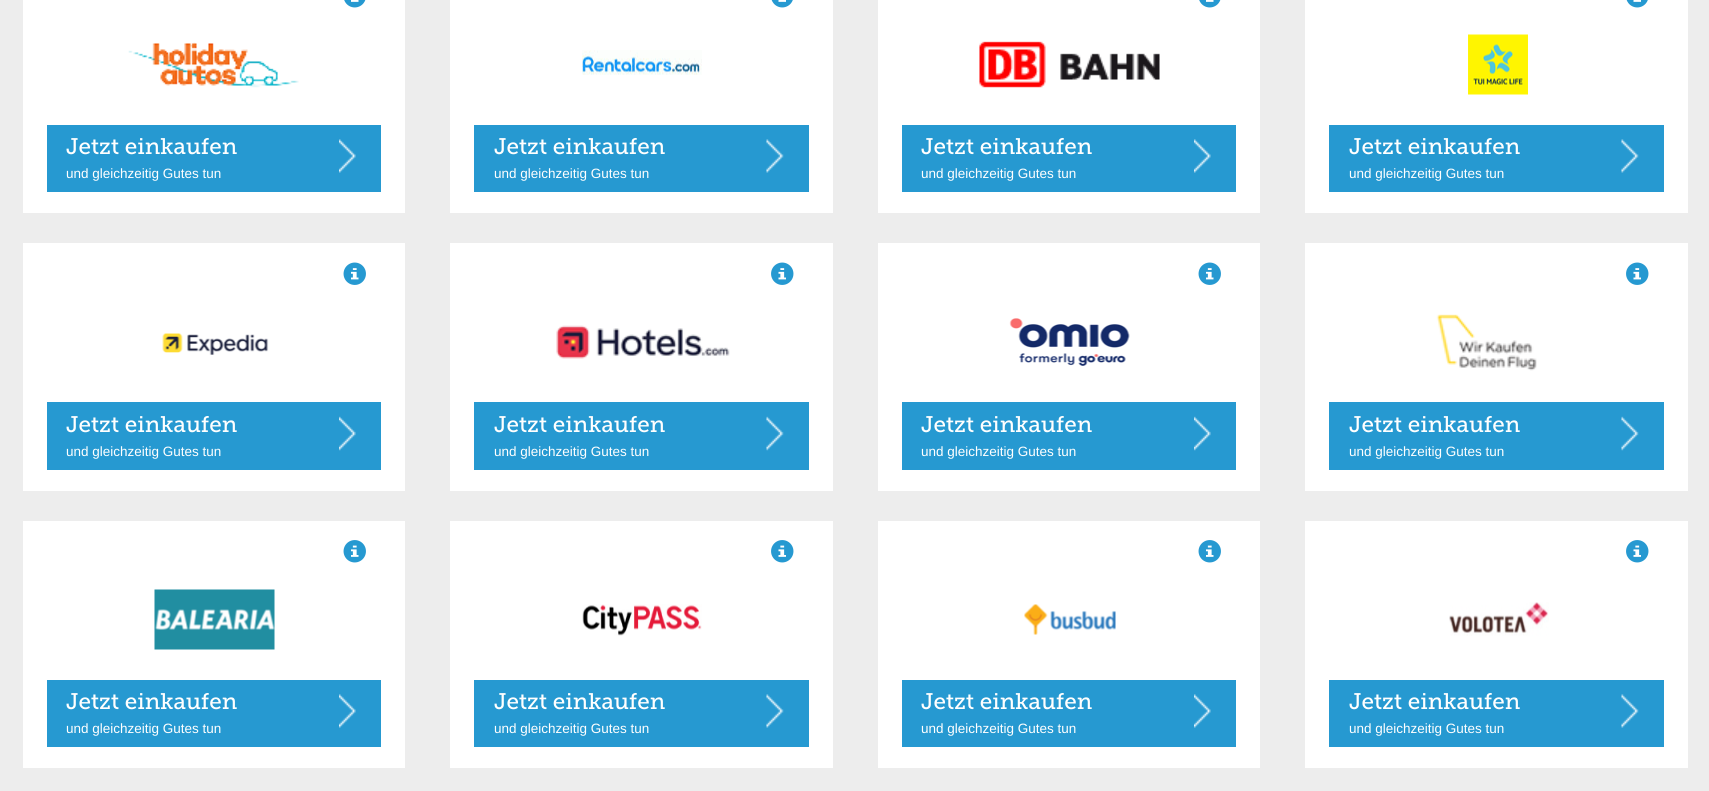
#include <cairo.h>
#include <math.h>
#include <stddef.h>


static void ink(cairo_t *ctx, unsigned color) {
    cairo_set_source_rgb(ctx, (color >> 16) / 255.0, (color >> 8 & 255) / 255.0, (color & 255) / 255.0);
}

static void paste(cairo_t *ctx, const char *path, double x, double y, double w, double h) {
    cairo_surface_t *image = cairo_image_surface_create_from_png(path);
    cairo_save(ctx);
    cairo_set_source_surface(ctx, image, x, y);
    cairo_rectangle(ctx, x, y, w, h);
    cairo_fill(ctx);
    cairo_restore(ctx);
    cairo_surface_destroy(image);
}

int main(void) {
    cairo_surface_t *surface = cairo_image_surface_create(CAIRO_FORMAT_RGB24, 1709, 791);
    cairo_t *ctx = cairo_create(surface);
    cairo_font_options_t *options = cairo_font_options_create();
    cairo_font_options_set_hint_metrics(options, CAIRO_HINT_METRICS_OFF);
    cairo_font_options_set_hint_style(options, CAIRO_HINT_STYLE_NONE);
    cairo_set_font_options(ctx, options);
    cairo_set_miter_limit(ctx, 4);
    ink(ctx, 0xEDEDED);
    cairo_paint(ctx);
    ink(ctx, 0xFFFFFF);
    cairo_rectangle(ctx, 23, 0, 382, 213);
    cairo_fill(ctx);
    paste(ctx, "media/1.png", 344, 0, 22, 8);
    paste(ctx, "media/2.png", 128, 42, 171, 46);
    ink(ctx, 0x2699D1);
    cairo_rectangle(ctx, 47, 125, 334, 67);
    cairo_fill(ctx);
    cairo_select_font_face(ctx, "Museo Slab", CAIRO_FONT_SLANT_NORMAL, CAIRO_FONT_WEIGHT_NORMAL);
    cairo_set_font_size(ctx, 22.5);
    ink(ctx, 0xFFFFFF);
    cairo_move_to(ctx, 66, 154);
    cairo_show_text(ctx, "Jetzt einkaufen");
    paste(ctx, "media/3.png", 339, 139, 17, 34);
    cairo_select_font_face(ctx, "Liberation Sans", CAIRO_FONT_SLANT_NORMAL, CAIRO_FONT_WEIGHT_NORMAL);
    cairo_set_font_size(ctx, 13.5);
    cairo_move_to(ctx, 66, 178);
    cairo_show_text(ctx, "und gleichzeitig Gutes tun");
    cairo_rectangle(ctx, 450, 0, 383, 213);
    cairo_fill(ctx);
    paste(ctx, "media/4.png", 771, 0, 22, 8);
    paste(ctx, "media/5.png", 582, 50, 120, 25);
    ink(ctx, 0x2699D1);
    cairo_rectangle(ctx, 474, 125, 335, 67);
    cairo_fill(ctx);
    cairo_select_font_face(ctx, "Museo Slab", CAIRO_FONT_SLANT_NORMAL, CAIRO_FONT_WEIGHT_NORMAL);
    cairo_set_font_size(ctx, 22.5);
    ink(ctx, 0xFFFFFF);
    cairo_move_to(ctx, 494, 154);
    cairo_show_text(ctx, "Jetzt einkaufen");
    paste(ctx, "media/6.png", 766, 139, 18, 34);
    cairo_select_font_face(ctx, "Liberation Sans", CAIRO_FONT_SLANT_NORMAL, CAIRO_FONT_WEIGHT_NORMAL);
    cairo_set_font_size(ctx, 13.5);
    cairo_move_to(ctx, 494, 178);
    cairo_show_text(ctx, "und gleichzeitig Gutes tun");
    cairo_rectangle(ctx, 878, 0, 382, 213);
    cairo_fill(ctx);
    paste(ctx, "media/1.png", 1199, 0, 22, 8);
    paste(ctx, "media/7.png", 979, 41, 181, 47);
    ink(ctx, 0x2699D1);
    cairo_rectangle(ctx, 902, 125, 334, 67);
    cairo_fill(ctx);
    cairo_select_font_face(ctx, "Museo Slab", CAIRO_FONT_SLANT_NORMAL, CAIRO_FONT_WEIGHT_NORMAL);
    cairo_set_font_size(ctx, 22.5);
    ink(ctx, 0xFFFFFF);
    cairo_move_to(ctx, 921, 154);
    cairo_show_text(ctx, "Jetzt einkaufen");
    paste(ctx, "media/3.png", 1194, 139, 17, 34);
    cairo_select_font_face(ctx, "Liberation Sans", CAIRO_FONT_SLANT_NORMAL, CAIRO_FONT_WEIGHT_NORMAL);
    cairo_set_font_size(ctx, 13.5);
    cairo_move_to(ctx, 921, 178);
    cairo_show_text(ctx, "und gleichzeitig Gutes tun");
    cairo_rectangle(ctx, 1305, 0, 383, 213);
    cairo_fill(ctx);
    paste(ctx, "media/4.png", 1626, 0, 22, 8);
    paste(ctx, "media/8.png", 1468, 34, 60, 61);
    ink(ctx, 0x2699D1);
    cairo_rectangle(ctx, 1329, 125, 335, 67);
    cairo_fill(ctx);
    cairo_select_font_face(ctx, "Museo Slab", CAIRO_FONT_SLANT_NORMAL, CAIRO_FONT_WEIGHT_NORMAL);
    cairo_set_font_size(ctx, 22.5);
    ink(ctx, 0xFFFFFF);
    cairo_move_to(ctx, 1349, 154);
    cairo_show_text(ctx, "Jetzt einkaufen");
    paste(ctx, "media/6.png", 1621, 139, 18, 34);
    cairo_select_font_face(ctx, "Liberation Sans", CAIRO_FONT_SLANT_NORMAL, CAIRO_FONT_WEIGHT_NORMAL);
    cairo_set_font_size(ctx, 13.5);
    cairo_move_to(ctx, 1349, 178);
    cairo_show_text(ctx, "und gleichzeitig Gutes tun");
    cairo_rectangle(ctx, 23, 243, 382, 248);
    cairo_fill(ctx);
    paste(ctx, "media/9.png", 343, 262, 23, 23);
    paste(ctx, "media/10.png", 162, 333, 107, 22);
    ink(ctx, 0x2699D1);
    cairo_rectangle(ctx, 47, 402, 334, 68);
    cairo_fill(ctx);
    cairo_select_font_face(ctx, "Museo Slab", CAIRO_FONT_SLANT_NORMAL, CAIRO_FONT_WEIGHT_NORMAL);
    cairo_set_font_size(ctx, 22.5);
    ink(ctx, 0xFFFFFF);
    cairo_move_to(ctx, 66, 432);
    cairo_show_text(ctx, "Jetzt einkaufen");
    paste(ctx, "media/11.png", 339, 416, 17, 35);
    cairo_select_font_face(ctx, "Liberation Sans", CAIRO_FONT_SLANT_NORMAL, CAIRO_FONT_WEIGHT_NORMAL);
    cairo_set_font_size(ctx, 13.5);
    cairo_move_to(ctx, 66, 456);
    cairo_show_text(ctx, "und gleichzeitig Gutes tun");
    cairo_rectangle(ctx, 450, 243, 383, 248);
    cairo_fill(ctx);
    paste(ctx, "media/12.png", 771, 262, 23, 23);
    paste(ctx, "media/13.png", 556, 325, 174, 34);
    ink(ctx, 0x2699D1);
    cairo_rectangle(ctx, 474, 402, 335, 68);
    cairo_fill(ctx);
    cairo_select_font_face(ctx, "Museo Slab", CAIRO_FONT_SLANT_NORMAL, CAIRO_FONT_WEIGHT_NORMAL);
    cairo_set_font_size(ctx, 22.5);
    ink(ctx, 0xFFFFFF);
    cairo_move_to(ctx, 494, 432);
    cairo_show_text(ctx, "Jetzt einkaufen");
    paste(ctx, "media/14.png", 766, 416, 18, 35);
    cairo_select_font_face(ctx, "Liberation Sans", CAIRO_FONT_SLANT_NORMAL, CAIRO_FONT_WEIGHT_NORMAL);
    cairo_set_font_size(ctx, 13.5);
    cairo_move_to(ctx, 494, 456);
    cairo_show_text(ctx, "und gleichzeitig Gutes tun");
    cairo_rectangle(ctx, 878, 243, 382, 248);
    cairo_fill(ctx);
    paste(ctx, "media/9.png", 1198, 262, 23, 23);
    paste(ctx, "media/15.png", 1009, 318, 121, 48);
    ink(ctx, 0x2699D1);
    cairo_rectangle(ctx, 902, 402, 334, 68);
    cairo_fill(ctx);
    cairo_select_font_face(ctx, "Museo Slab", CAIRO_FONT_SLANT_NORMAL, CAIRO_FONT_WEIGHT_NORMAL);
    cairo_set_font_size(ctx, 22.5);
    ink(ctx, 0xFFFFFF);
    cairo_move_to(ctx, 921, 432);
    cairo_show_text(ctx, "Jetzt einkaufen");
    paste(ctx, "media/11.png", 1194, 416, 17, 35);
    cairo_select_font_face(ctx, "Liberation Sans", CAIRO_FONT_SLANT_NORMAL, CAIRO_FONT_WEIGHT_NORMAL);
    cairo_set_font_size(ctx, 13.5);
    cairo_move_to(ctx, 921, 456);
    cairo_show_text(ctx, "und gleichzeitig Gutes tun");
    cairo_rectangle(ctx, 1305, 243, 383, 248);
    cairo_fill(ctx);
    paste(ctx, "media/12.png", 1626, 262, 23, 23);
    paste(ctx, "media/16.png", 1436, 314, 101, 57);
    ink(ctx, 0x2699D1);
    cairo_rectangle(ctx, 1329, 402, 335, 68);
    cairo_fill(ctx);
    cairo_select_font_face(ctx, "Museo Slab", CAIRO_FONT_SLANT_NORMAL, CAIRO_FONT_WEIGHT_NORMAL);
    cairo_set_font_size(ctx, 22.5);
    ink(ctx, 0xFFFFFF);
    cairo_move_to(ctx, 1349, 432);
    cairo_show_text(ctx, "Jetzt einkaufen");
    paste(ctx, "media/14.png", 1621, 416, 18, 35);
    cairo_select_font_face(ctx, "Liberation Sans", CAIRO_FONT_SLANT_NORMAL, CAIRO_FONT_WEIGHT_NORMAL);
    cairo_set_font_size(ctx, 13.5);
    cairo_move_to(ctx, 1349, 456);
    cairo_show_text(ctx, "und gleichzeitig Gutes tun");
    cairo_rectangle(ctx, 23, 521, 382, 247);
    cairo_fill(ctx);
    paste(ctx, "media/17.png", 343, 540, 23, 23);
    paste(ctx, "media/18.png", 154, 589, 121, 61);
    ink(ctx, 0x2699D1);
    cairo_rectangle(ctx, 47, 680, 334, 67);
    cairo_fill(ctx);
    cairo_select_font_face(ctx, "Museo Slab", CAIRO_FONT_SLANT_NORMAL, CAIRO_FONT_WEIGHT_NORMAL);
    cairo_set_font_size(ctx, 22.5);
    ink(ctx, 0xFFFFFF);
    cairo_move_to(ctx, 66, 709);
    cairo_show_text(ctx, "Jetzt einkaufen");
    paste(ctx, "media/3.png", 339, 694, 17, 34);
    cairo_select_font_face(ctx, "Liberation Sans", CAIRO_FONT_SLANT_NORMAL, CAIRO_FONT_WEIGHT_NORMAL);
    cairo_set_font_size(ctx, 13.5);
    cairo_move_to(ctx, 66, 733);
    cairo_show_text(ctx, "und gleichzeitig Gutes tun");
    cairo_rectangle(ctx, 450, 521, 383, 247);
    cairo_fill(ctx);
    paste(ctx, "media/19.png", 771, 540, 23, 23);
    paste(ctx, "media/20.png", 582, 604, 120, 32);
    ink(ctx, 0x2699D1);
    cairo_rectangle(ctx, 474, 680, 335, 67);
    cairo_fill(ctx);
    cairo_select_font_face(ctx, "Museo Slab", CAIRO_FONT_SLANT_NORMAL, CAIRO_FONT_WEIGHT_NORMAL);
    cairo_set_font_size(ctx, 22.5);
    ink(ctx, 0xFFFFFF);
    cairo_move_to(ctx, 494, 709);
    cairo_show_text(ctx, "Jetzt einkaufen");
    paste(ctx, "media/6.png", 766, 694, 18, 34);
    cairo_select_font_face(ctx, "Liberation Sans", CAIRO_FONT_SLANT_NORMAL, CAIRO_FONT_WEIGHT_NORMAL);
    cairo_set_font_size(ctx, 13.5);
    cairo_move_to(ctx, 494, 733);
    cairo_show_text(ctx, "und gleichzeitig Gutes tun");
    cairo_rectangle(ctx, 878, 521, 382, 247);
    cairo_fill(ctx);
    paste(ctx, "media/17.png", 1198, 540, 23, 23);
    paste(ctx, "media/21.png", 1024, 604, 92, 31);
    ink(ctx, 0x2699D1);
    cairo_rectangle(ctx, 902, 680, 334, 67);
    cairo_fill(ctx);
    cairo_select_font_face(ctx, "Museo Slab", CAIRO_FONT_SLANT_NORMAL, CAIRO_FONT_WEIGHT_NORMAL);
    cairo_set_font_size(ctx, 22.5);
    ink(ctx, 0xFFFFFF);
    cairo_move_to(ctx, 921, 709);
    cairo_show_text(ctx, "Jetzt einkaufen");
    paste(ctx, "media/3.png", 1194, 694, 17, 34);
    cairo_select_font_face(ctx, "Liberation Sans", CAIRO_FONT_SLANT_NORMAL, CAIRO_FONT_WEIGHT_NORMAL);
    cairo_set_font_size(ctx, 13.5);
    cairo_move_to(ctx, 921, 733);
    cairo_show_text(ctx, "und gleichzeitig Gutes tun");
    cairo_rectangle(ctx, 1305, 521, 383, 247);
    cairo_fill(ctx);
    paste(ctx, "media/19.png", 1626, 540, 23, 23);
    paste(ctx, "media/22.png", 1449, 602, 100, 34);
    ink(ctx, 0x2699D1);
    cairo_rectangle(ctx, 1329, 680, 335, 67);
    cairo_fill(ctx);
    cairo_select_font_face(ctx, "Museo Slab", CAIRO_FONT_SLANT_NORMAL, CAIRO_FONT_WEIGHT_NORMAL);
    cairo_set_font_size(ctx, 22.5);
    ink(ctx, 0xFFFFFF);
    cairo_move_to(ctx, 1349, 709);
    cairo_show_text(ctx, "Jetzt einkaufen");
    paste(ctx, "media/6.png", 1621, 694, 18, 34);
    cairo_select_font_face(ctx, "Liberation Sans", CAIRO_FONT_SLANT_NORMAL, CAIRO_FONT_WEIGHT_NORMAL);
    cairo_set_font_size(ctx, 13.5);
    cairo_move_to(ctx, 1349, 733);
    cairo_show_text(ctx, "und gleichzeitig Gutes tun");
    cairo_surface_write_to_png(surface, "image.png");
    cairo_font_options_destroy(options);
    cairo_destroy(ctx);
    cairo_surface_destroy(surface);
    return 0;
}
